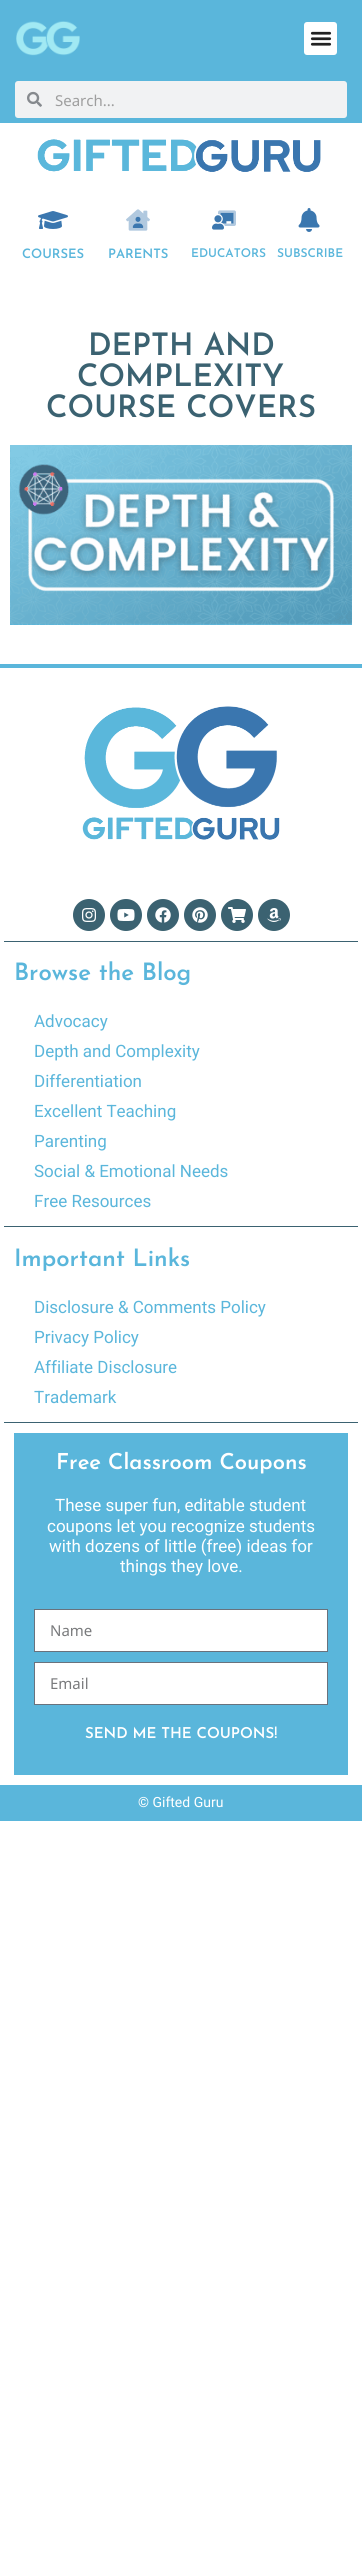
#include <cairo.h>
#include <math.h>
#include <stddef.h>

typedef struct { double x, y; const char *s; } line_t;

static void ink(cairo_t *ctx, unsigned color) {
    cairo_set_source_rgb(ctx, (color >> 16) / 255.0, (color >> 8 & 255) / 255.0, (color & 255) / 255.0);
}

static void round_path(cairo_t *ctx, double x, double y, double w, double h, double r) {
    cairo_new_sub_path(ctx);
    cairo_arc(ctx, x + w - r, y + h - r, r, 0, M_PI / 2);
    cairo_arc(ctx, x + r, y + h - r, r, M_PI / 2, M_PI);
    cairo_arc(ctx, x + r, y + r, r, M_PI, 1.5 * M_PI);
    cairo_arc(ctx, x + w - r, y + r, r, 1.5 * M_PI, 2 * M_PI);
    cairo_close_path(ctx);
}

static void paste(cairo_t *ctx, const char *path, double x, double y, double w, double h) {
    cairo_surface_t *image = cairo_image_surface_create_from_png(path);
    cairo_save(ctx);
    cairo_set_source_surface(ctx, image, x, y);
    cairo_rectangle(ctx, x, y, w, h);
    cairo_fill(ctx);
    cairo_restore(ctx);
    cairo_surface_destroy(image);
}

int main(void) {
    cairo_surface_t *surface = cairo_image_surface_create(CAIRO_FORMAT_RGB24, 362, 2574);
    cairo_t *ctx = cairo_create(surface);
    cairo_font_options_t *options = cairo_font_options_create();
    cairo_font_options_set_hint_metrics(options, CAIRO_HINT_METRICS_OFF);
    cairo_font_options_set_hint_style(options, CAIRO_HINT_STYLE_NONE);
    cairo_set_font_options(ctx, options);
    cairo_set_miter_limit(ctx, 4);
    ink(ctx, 0xFFFFFF);
    cairo_paint(ctx);
    ink(ctx, 0x5AB6DB);
    cairo_rectangle(ctx, 0, 0, 362, 123);
    cairo_fill(ctx);
    paste(ctx, "media/1.png", 16, 21, 64, 35);
    ink(ctx, 0xFFFFFF);
    round_path(ctx, 304, 22, 33, 33, 3);
    cairo_fill(ctx);
    paste(ctx, "media/2.png", 310, 31, 22, 15);
    ink(ctx, 0xF1F2F3);
    round_path(ctx, 15, 81, 332, 37, 3);
    cairo_fill(ctx);
    paste(ctx, "media/3.png", 27, 91, 15, 16);
    cairo_select_font_face(ctx, "Noto Sans", CAIRO_FONT_SLANT_NORMAL, CAIRO_FONT_WEIGHT_NORMAL);
    cairo_set_font_size(ctx, 15);
    ink(ctx, 0x9E9E9E);
    cairo_move_to(ctx, 55, 106);
    cairo_show_text(ctx, "Search...");
    paste(ctx, "media/4.png", 37, 139, 284, 33);
    paste(ctx, "media/5.png", 38, 211, 30, 18);
    cairo_select_font_face(ctx, "Josefin Sans SemiBold", CAIRO_FONT_SLANT_NORMAL, CAIRO_FONT_WEIGHT_NORMAL);
    cairo_set_font_size(ctx, 13);
    ink(ctx, 0x5AB6DB);
    cairo_move_to(ctx, 22, 258);
    cairo_show_text(ctx, "COURSES");
    paste(ctx, "media/6.png", 126, 209, 24, 22);
    cairo_move_to(ctx, 108, 258);
    cairo_show_text(ctx, "PARENTS");
    paste(ctx, "media/7.png", 212, 210, 24, 20);
    cairo_set_font_size(ctx, 12);
    cairo_move_to(ctx, 191, 257);
    cairo_show_text(ctx, "EDUCATORS");
    paste(ctx, "media/8.png", 298, 208, 22, 24);
    cairo_move_to(ctx, 277, 257);
    cairo_show_text(ctx, "SUBSCRIBE");
    cairo_set_font_size(ctx, 31);
    ink(ctx, 0x3B6271);
    {
        static const line_t items[] = {
            {88, 355, "DEPTH AND"},
            {77, 386, "COMPLEXITY"},
            {46, 417, "COURSE COVERS"},
        };
        for (size_t i = 0; i < sizeof items / sizeof *items; i++) {
            cairo_move_to(ctx, items[i].x, items[i].y);
            cairo_show_text(ctx, items[i].s);
        }
    }
    paste(ctx, "media/9.png", 10, 445, 342, 180);
    ink(ctx, 0x5AB6DB);
    cairo_rectangle(ctx, 0, 664, 362, 4);
    cairo_fill(ctx);
    ink(ctx, 0x3B6271);
    cairo_rectangle(ctx, 4, 941, 354, 1);
    cairo_fill(ctx);
    paste(ctx, "media/10.png", 82, 706, 198, 134);
    cairo_arc(ctx, 89, 915, 16, 0, 2 * M_PI);
    cairo_fill(ctx);
    paste(ctx, "media/11.png", 82, 908, 14, 14);
    cairo_arc(ctx, 126, 915, 16, 0, 2 * M_PI);
    cairo_fill(ctx);
    paste(ctx, "media/12.png", 117, 909, 18, 12);
    cairo_arc(ctx, 163, 915, 16, 0, 2 * M_PI);
    cairo_fill(ctx);
    paste(ctx, "media/13.png", 155, 907, 16, 16);
    cairo_arc(ctx, 200, 915, 16, 0, 2 * M_PI);
    cairo_fill(ctx);
    paste(ctx, "media/14.png", 192, 907, 16, 16);
    cairo_arc(ctx, 237, 915, 16, 0, 2 * M_PI);
    cairo_fill(ctx);
    paste(ctx, "media/15.png", 228, 907, 18, 16);
    cairo_arc(ctx, 274, 915, 16, 0, 2 * M_PI);
    cairo_fill(ctx);
    paste(ctx, "media/16.png", 267, 908, 14, 14);
    cairo_rectangle(ctx, 4, 1226, 354, 1);
    cairo_fill(ctx);
    cairo_set_font_size(ctx, 24);
    ink(ctx, 0x5AB6DB);
    cairo_move_to(ctx, 14, 980);
    cairo_show_text(ctx, "Browse the Blog");
    cairo_select_font_face(ctx, "Roboto", CAIRO_FONT_SLANT_NORMAL, CAIRO_FONT_WEIGHT_NORMAL);
    cairo_set_font_size(ctx, 17);
    {
        static const line_t items[] = {
            {34, 1027, "Advocacy"},
            {34, 1057, "Depth and Complexity"},
            {34, 1087, "Differentiation"},
            {34, 1117, "Excellent Teaching"},
            {34, 1147, "Parenting"},
            {34, 1177, "Social & Emotional Needs"},
            {34, 1207, "Free Resources"},
        };
        for (size_t i = 0; i < sizeof items / sizeof *items; i++) {
            cairo_move_to(ctx, items[i].x, items[i].y);
            cairo_show_text(ctx, items[i].s);
        }
    }
    ink(ctx, 0x3B6271);
    cairo_rectangle(ctx, 4, 1422, 354, 1);
    cairo_fill(ctx);
    cairo_select_font_face(ctx, "Josefin Sans SemiBold", CAIRO_FONT_SLANT_NORMAL, CAIRO_FONT_WEIGHT_NORMAL);
    cairo_set_font_size(ctx, 24);
    ink(ctx, 0x5AB6DB);
    cairo_move_to(ctx, 14, 1266);
    cairo_show_text(ctx, "Important Links");
    cairo_select_font_face(ctx, "Roboto", CAIRO_FONT_SLANT_NORMAL, CAIRO_FONT_WEIGHT_NORMAL);
    cairo_set_font_size(ctx, 17);
    {
        static const line_t items[] = {
            {34, 1313, "Disclosure & Comments Policy"},
            {34, 1343, "Privacy Policy"},
            {34, 1373, "Affiliate Disclosure"},
            {34, 1403, "Trademark"},
        };
        for (size_t i = 0; i < sizeof items / sizeof *items; i++) {
            cairo_move_to(ctx, items[i].x, items[i].y);
            cairo_show_text(ctx, items[i].s);
        }
    }
    cairo_rectangle(ctx, 14, 1433, 334, 342);
    cairo_fill(ctx);
    cairo_select_font_face(ctx, "Josefin Sans SemiBold", CAIRO_FONT_SLANT_NORMAL, CAIRO_FONT_WEIGHT_NORMAL);
    cairo_set_font_size(ctx, 22);
    ink(ctx, 0xFFFFFF);
    cairo_move_to(ctx, 56, 1469);
    cairo_show_text(ctx, "Free Classroom Coupons");
    cairo_select_font_face(ctx, "Roboto", CAIRO_FONT_SLANT_NORMAL, CAIRO_FONT_WEIGHT_NORMAL);
    cairo_set_font_size(ctx, 17);
    {
        static const line_t items[] = {
            {55, 1511, "These super fun, editable student"},
            {47, 1532, "coupons let you recognize students"},
            {49, 1552, "with dozens of little (free) ideas for"},
            {120, 1572, "things they love."},
        };
        for (size_t i = 0; i < sizeof items / sizeof *items; i++) {
            cairo_move_to(ctx, items[i].x, items[i].y);
            cairo_show_text(ctx, items[i].s);
        }
    }
    cairo_rectangle(ctx, 34.5, 1609.5, 293, 42);
    cairo_fill_preserve(ctx);
    ink(ctx, 0x69727D);
    cairo_set_line_width(ctx, 1);
    cairo_stroke(ctx);
    cairo_select_font_face(ctx, "Noto Sans", CAIRO_FONT_SLANT_NORMAL, CAIRO_FONT_WEIGHT_NORMAL);
    cairo_set_font_size(ctx, 15);
    ink(ctx, 0x797A7C);
    cairo_move_to(ctx, 50, 1636);
    cairo_show_text(ctx, "Name");
    ink(ctx, 0xFFFFFF);
    cairo_rectangle(ctx, 34.5, 1662.5, 293, 42);
    cairo_fill_preserve(ctx);
    ink(ctx, 0x69727D);
    cairo_stroke(ctx);
    ink(ctx, 0x797A7C);
    cairo_move_to(ctx, 50, 1689);
    cairo_show_text(ctx, "Email");
    cairo_select_font_face(ctx, "Josefin Sans SemiBold", CAIRO_FONT_SLANT_NORMAL, CAIRO_FONT_WEIGHT_NORMAL);
    ink(ctx, 0xFFFFFF);
    cairo_move_to(ctx, 85, 1738);
    cairo_show_text(ctx, "SEND ME THE COUPONS!");
    ink(ctx, 0x5AB6DB);
    cairo_rectangle(ctx, 0, 1785, 362, 36);
    cairo_fill(ctx);
    cairo_select_font_face(ctx, "Roboto", CAIRO_FONT_SLANT_NORMAL, CAIRO_FONT_WEIGHT_NORMAL);
    cairo_set_font_size(ctx, 14);
    ink(ctx, 0xFFFFFF);
    cairo_move_to(ctx, 138, 1807);
    cairo_show_text(ctx, "© Gifted Guru");
    cairo_surface_write_to_png(surface, "image.png");
    cairo_font_options_destroy(options);
    cairo_destroy(ctx);
    cairo_surface_destroy(surface);
    return 0;
}
